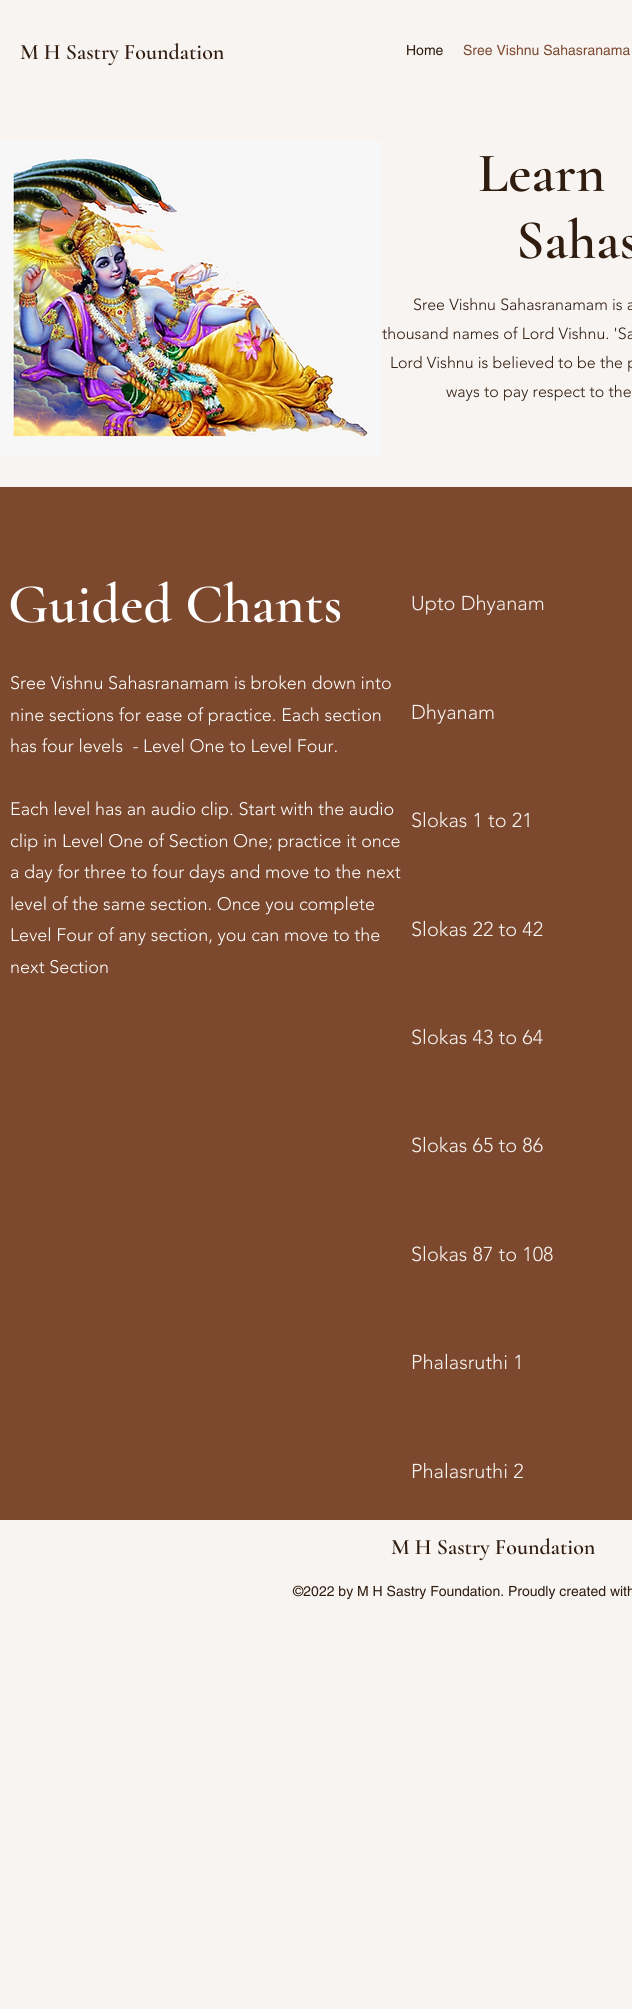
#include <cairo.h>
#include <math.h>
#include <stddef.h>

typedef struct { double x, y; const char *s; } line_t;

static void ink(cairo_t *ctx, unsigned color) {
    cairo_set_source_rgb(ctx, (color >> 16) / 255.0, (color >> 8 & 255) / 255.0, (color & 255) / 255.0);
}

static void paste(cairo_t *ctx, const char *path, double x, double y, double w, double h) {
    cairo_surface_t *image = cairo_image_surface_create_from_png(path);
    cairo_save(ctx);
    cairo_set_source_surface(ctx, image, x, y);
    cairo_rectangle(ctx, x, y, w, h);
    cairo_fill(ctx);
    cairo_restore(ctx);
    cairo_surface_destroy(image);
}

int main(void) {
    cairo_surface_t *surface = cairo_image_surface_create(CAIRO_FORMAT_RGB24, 632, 2009);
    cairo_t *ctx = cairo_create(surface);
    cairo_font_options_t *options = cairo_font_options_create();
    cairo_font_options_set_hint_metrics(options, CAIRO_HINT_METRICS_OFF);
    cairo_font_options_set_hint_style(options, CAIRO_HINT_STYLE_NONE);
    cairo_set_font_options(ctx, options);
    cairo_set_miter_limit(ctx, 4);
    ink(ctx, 0xF8F4F1);
    cairo_paint(ctx);
    cairo_select_font_face(ctx, "Cormorant Garamond SemiBold", CAIRO_FONT_SLANT_NORMAL, CAIRO_FONT_WEIGHT_NORMAL);
    cairo_set_font_size(ctx, 22);
    ink(ctx, 0x301D10);
    cairo_move_to(ctx, 20, 59);
    cairo_show_text(ctx, "M H Sastry Foundation");
    cairo_select_font_face(ctx, "helvetica", CAIRO_FONT_SLANT_NORMAL, CAIRO_FONT_WEIGHT_NORMAL);
    cairo_set_font_size(ctx, 14);
    cairo_move_to(ctx, 406, 55);
    cairo_show_text(ctx, "Home");
    ink(ctx, 0x7C492F);
    cairo_move_to(ctx, 463, 55);
    cairo_show_text(ctx, "Sree Vishnu Sahasranama");
    paste(ctx, "media/1.png", 0, 140, 381, 317);
    cairo_select_font_face(ctx, "Cormorant Garamond SemiBold", CAIRO_FONT_SLANT_NORMAL, CAIRO_FONT_WEIGHT_NORMAL);
    cairo_set_font_size(ctx, 56);
    ink(ctx, 0x301D10);
    cairo_move_to(ctx, 478, 191);
    cairo_show_text(ctx, "Learn");
    cairo_move_to(ctx, 516, 258);
    cairo_show_text(ctx, "Sahas");
    cairo_select_font_face(ctx, "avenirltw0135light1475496 Light", CAIRO_FONT_SLANT_NORMAL, CAIRO_FONT_WEIGHT_NORMAL);
    cairo_set_font_size(ctx, 16);
    {
        static const line_t items[] = {
            {413, 310, "Sree Vishnu Sahasranamam is a"},
            {382, 339, "thousand names of Lord Vishnu. 'Sa"},
            {390, 368, "Lord Vishnu is believed to be the p"},
            {446, 397, "ways to pay respect to the"},
        };
        for (size_t i = 0; i < sizeof items / sizeof *items; i++) {
            cairo_move_to(ctx, items[i].x, items[i].y);
            cairo_show_text(ctx, items[i].s);
        }
    }
    ink(ctx, 0x7C492F);
    cairo_rectangle(ctx, 0, 487, 632, 1033);
    cairo_fill(ctx);
    cairo_select_font_face(ctx, "Cormorant Garamond SemiBold", CAIRO_FONT_SLANT_NORMAL, CAIRO_FONT_WEIGHT_NORMAL);
    cairo_set_font_size(ctx, 56);
    ink(ctx, 0xFFFFFF);
    cairo_move_to(ctx, 8, 622);
    cairo_show_text(ctx, "Guided Chants");
    cairo_select_font_face(ctx, "avenirltw0135light1475496 Light", CAIRO_FONT_SLANT_NORMAL, CAIRO_FONT_WEIGHT_NORMAL);
    cairo_set_font_size(ctx, 18);
    {
        static const line_t items[] = {
            {10, 689, "Sree Vishnu Sahasranamam is broken down into"},
            {10, 721, "nine sections for ease of practice. Each section"},
            {10, 752, "has four levels  - Level One to Level Four."},
            {10, 815, "Each level has an audio clip. Start with the audio"},
            {10, 847, "clip in Level One of Section One; practice it once"},
            {10, 878, "a day for three to four days and move to the next"},
            {10, 910, "level of the same section. Once you complete"},
            {10, 941, "Level Four of any section, you can move to the"},
            {10, 973, "next Section"},
        };
        for (size_t i = 0; i < sizeof items / sizeof *items; i++) {
            cairo_move_to(ctx, items[i].x, items[i].y);
            cairo_show_text(ctx, items[i].s);
        }
    }
    cairo_set_font_size(ctx, 20);
    ink(ctx, 0xF8F4F1);
    {
        static const line_t items[] = {
            {411, 610, "Upto Dhyanam"},
            {411, 719, "Dhyanam"},
            {411, 827, "Slokas 1 to 21"},
            {411, 936, "Slokas 22 to 42"},
            {411, 1044, "Slokas 43 to 64"},
            {411, 1152, "Slokas 65 to 86"},
            {411, 1261, "Slokas 87 to 108"},
            {411, 1369, "Phalasruthi 1"},
            {411, 1478, "Phalasruthi 2"},
        };
        for (size_t i = 0; i < sizeof items / sizeof *items; i++) {
            cairo_move_to(ctx, items[i].x, items[i].y);
            cairo_show_text(ctx, items[i].s);
        }
    }
    cairo_select_font_face(ctx, "Cormorant Garamond SemiBold", CAIRO_FONT_SLANT_NORMAL, CAIRO_FONT_WEIGHT_NORMAL);
    cairo_set_font_size(ctx, 22);
    ink(ctx, 0x301D10);
    cairo_move_to(ctx, 391, 1554);
    cairo_show_text(ctx, "M H Sastry Foundation");
    cairo_select_font_face(ctx, "helvetica", CAIRO_FONT_SLANT_NORMAL, CAIRO_FONT_WEIGHT_NORMAL);
    cairo_set_font_size(ctx, 14);
    cairo_move_to(ctx, 293, 1596);
    cairo_show_text(ctx, "©2022 by M H Sastry Foundation. Proudly created with");
    cairo_surface_write_to_png(surface, "image.png");
    cairo_font_options_destroy(options);
    cairo_destroy(ctx);
    cairo_surface_destroy(surface);
    return 0;
}
